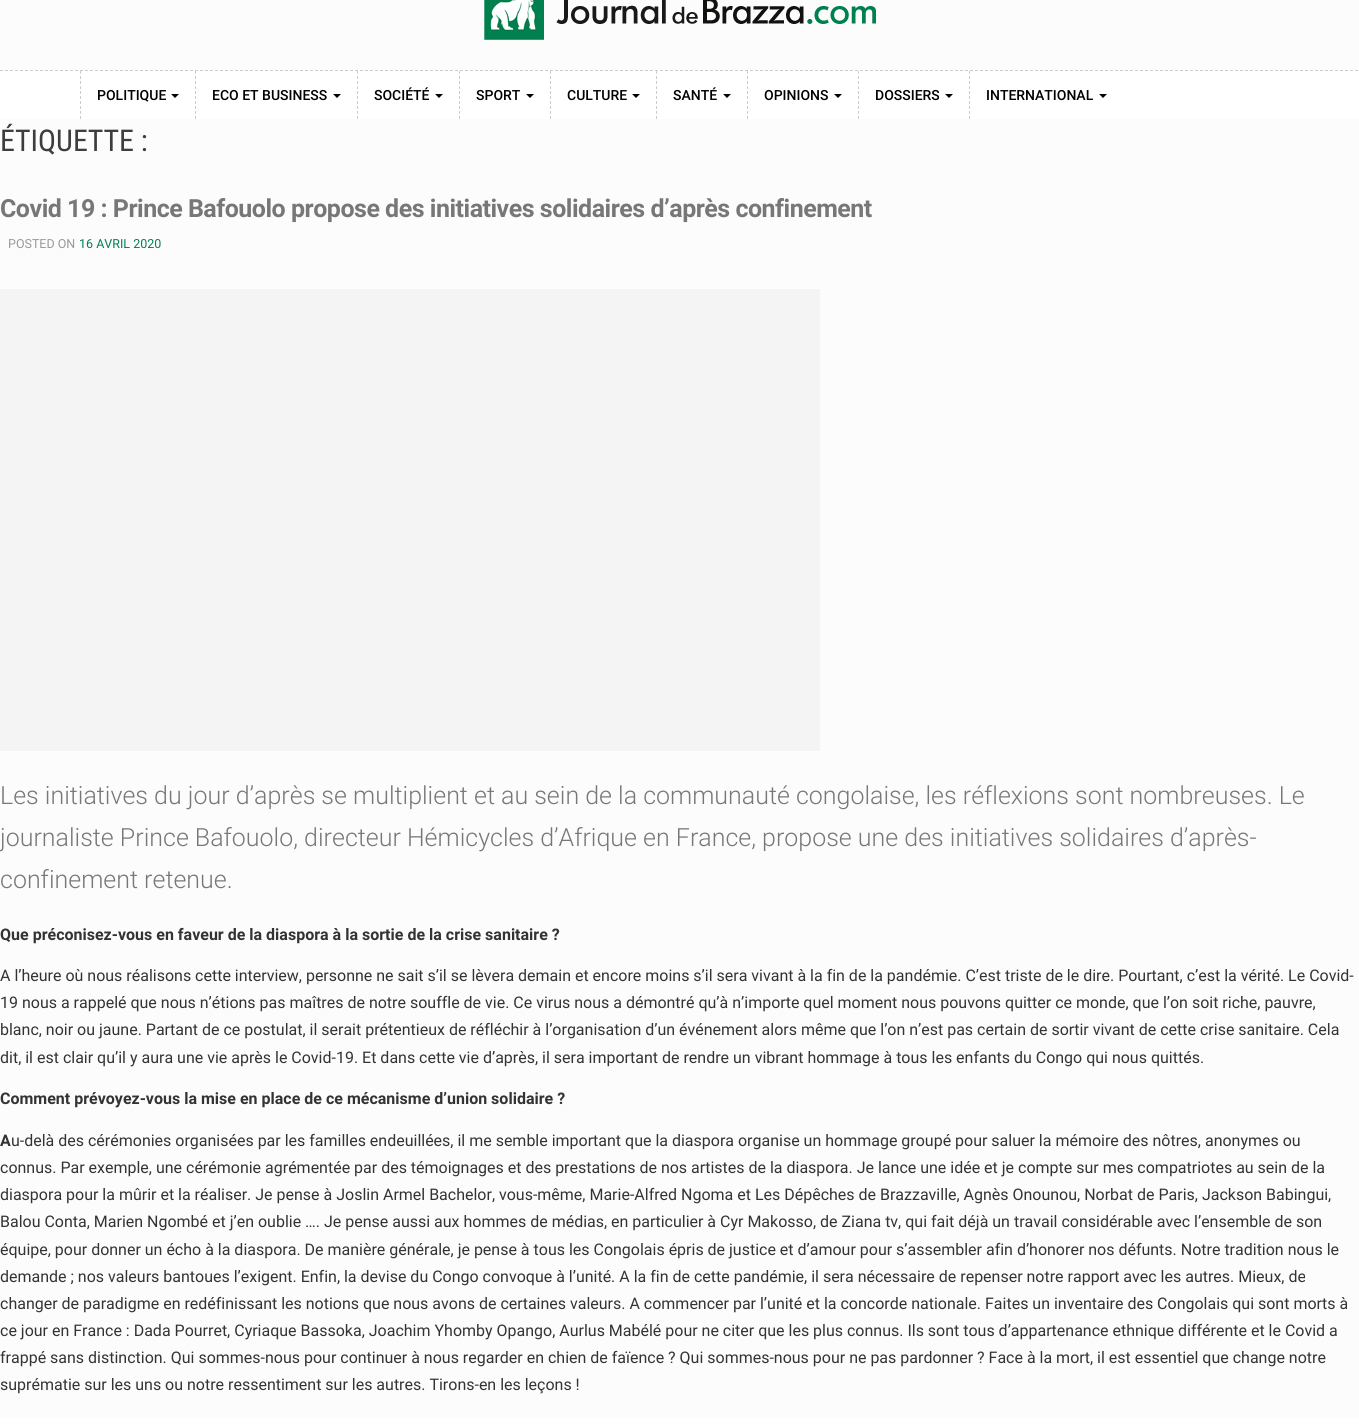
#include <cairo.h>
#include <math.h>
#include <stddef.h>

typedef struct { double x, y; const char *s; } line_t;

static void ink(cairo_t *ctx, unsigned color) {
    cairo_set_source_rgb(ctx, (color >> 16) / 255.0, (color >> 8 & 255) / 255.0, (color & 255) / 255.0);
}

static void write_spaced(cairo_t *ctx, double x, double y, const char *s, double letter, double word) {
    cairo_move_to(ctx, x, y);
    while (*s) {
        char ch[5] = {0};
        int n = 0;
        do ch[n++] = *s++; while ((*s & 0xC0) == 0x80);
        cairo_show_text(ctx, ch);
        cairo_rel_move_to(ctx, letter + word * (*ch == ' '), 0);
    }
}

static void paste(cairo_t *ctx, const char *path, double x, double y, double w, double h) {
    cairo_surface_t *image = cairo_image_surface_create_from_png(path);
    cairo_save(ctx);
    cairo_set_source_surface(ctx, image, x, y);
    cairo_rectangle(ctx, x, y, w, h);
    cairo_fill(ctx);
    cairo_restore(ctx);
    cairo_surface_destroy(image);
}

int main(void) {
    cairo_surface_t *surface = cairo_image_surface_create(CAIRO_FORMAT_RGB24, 1359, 1428);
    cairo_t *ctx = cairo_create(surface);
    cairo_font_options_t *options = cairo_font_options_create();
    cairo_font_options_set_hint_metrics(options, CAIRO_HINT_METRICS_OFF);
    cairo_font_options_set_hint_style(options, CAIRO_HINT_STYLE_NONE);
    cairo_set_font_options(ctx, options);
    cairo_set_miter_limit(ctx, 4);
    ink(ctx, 0xFCFCFC);
    cairo_paint(ctx);
    paste(ctx, "media/1.png", 484, 0, 392, 40);
    ink(ctx, 0xFFFFFF);
    cairo_rectangle(ctx, 0, 70, 1359, 49);
    cairo_fill(ctx);
    cairo_new_path(ctx);
    cairo_move_to(ctx, 0, 70.5);
    cairo_line_to(ctx, 1359, 70.5);
    ink(ctx, 0xCCCCCC);
    cairo_set_line_width(ctx, 1);
    cairo_set_dash(ctx, (double[]){3, 2}, 2, 0);
    cairo_stroke(ctx);
    cairo_new_path(ctx);
    cairo_move_to(ctx, 80.5, 71);
    cairo_line_to(ctx, 80.5, 119);
    cairo_stroke(ctx);
    cairo_select_font_face(ctx, "Roboto Medium", CAIRO_FONT_SLANT_NORMAL, CAIRO_FONT_WEIGHT_NORMAL);
    cairo_set_font_size(ctx, 14);
    ink(ctx, 0x000000);
    cairo_move_to(ctx, 97, 100);
    cairo_show_text(ctx, "POLITIQUE");
    cairo_new_path(ctx);
    cairo_move_to(ctx, 171, 94);
    cairo_line_to(ctx, 179, 94);
    cairo_line_to(ctx, 175, 98);
    cairo_close_path(ctx);
    cairo_fill(ctx);
    cairo_new_path(ctx);
    cairo_move_to(ctx, 195.5, 71);
    cairo_line_to(ctx, 195.5, 119);
    ink(ctx, 0xCCCCCC);
    cairo_stroke(ctx);
    ink(ctx, 0x000000);
    cairo_move_to(ctx, 212, 100);
    cairo_show_text(ctx, "ECO ET BUSINESS");
    cairo_new_path(ctx);
    cairo_move_to(ctx, 333, 94);
    cairo_line_to(ctx, 341, 94);
    cairo_line_to(ctx, 337, 98);
    cairo_close_path(ctx);
    cairo_fill(ctx);
    cairo_new_path(ctx);
    cairo_move_to(ctx, 357.5, 71);
    cairo_line_to(ctx, 357.5, 119);
    ink(ctx, 0xCCCCCC);
    cairo_stroke(ctx);
    ink(ctx, 0x000000);
    cairo_move_to(ctx, 374, 100);
    cairo_show_text(ctx, "SOCIÉTÉ");
    cairo_new_path(ctx);
    cairo_move_to(ctx, 435, 94);
    cairo_line_to(ctx, 443, 94);
    cairo_line_to(ctx, 439, 98);
    cairo_close_path(ctx);
    cairo_fill(ctx);
    cairo_new_path(ctx);
    cairo_move_to(ctx, 459.5, 71);
    cairo_line_to(ctx, 459.5, 119);
    ink(ctx, 0xCCCCCC);
    cairo_stroke(ctx);
    ink(ctx, 0x000000);
    cairo_move_to(ctx, 476, 100);
    cairo_show_text(ctx, "SPORT");
    cairo_new_path(ctx);
    cairo_move_to(ctx, 526, 94);
    cairo_line_to(ctx, 534, 94);
    cairo_line_to(ctx, 530, 98);
    cairo_close_path(ctx);
    cairo_fill(ctx);
    cairo_new_path(ctx);
    cairo_move_to(ctx, 550.5, 71);
    cairo_line_to(ctx, 550.5, 119);
    ink(ctx, 0xCCCCCC);
    cairo_stroke(ctx);
    ink(ctx, 0x000000);
    cairo_move_to(ctx, 567, 100);
    cairo_show_text(ctx, "CULTURE");
    cairo_new_path(ctx);
    cairo_move_to(ctx, 632, 94);
    cairo_line_to(ctx, 640, 94);
    cairo_line_to(ctx, 636, 98);
    cairo_close_path(ctx);
    cairo_fill(ctx);
    cairo_new_path(ctx);
    cairo_move_to(ctx, 656.5, 71);
    cairo_line_to(ctx, 656.5, 119);
    ink(ctx, 0xCCCCCC);
    cairo_stroke(ctx);
    ink(ctx, 0x000000);
    cairo_move_to(ctx, 673, 100);
    cairo_show_text(ctx, "SANTÉ");
    cairo_new_path(ctx);
    cairo_move_to(ctx, 723, 94);
    cairo_line_to(ctx, 731, 94);
    cairo_line_to(ctx, 727, 98);
    cairo_close_path(ctx);
    cairo_fill(ctx);
    cairo_new_path(ctx);
    cairo_move_to(ctx, 747.5, 71);
    cairo_line_to(ctx, 747.5, 119);
    ink(ctx, 0xCCCCCC);
    cairo_stroke(ctx);
    ink(ctx, 0x000000);
    cairo_move_to(ctx, 764, 100);
    cairo_show_text(ctx, "OPINIONS");
    cairo_new_path(ctx);
    cairo_move_to(ctx, 834, 94);
    cairo_line_to(ctx, 842, 94);
    cairo_line_to(ctx, 838, 98);
    cairo_close_path(ctx);
    cairo_fill(ctx);
    cairo_new_path(ctx);
    cairo_move_to(ctx, 858.5, 71);
    cairo_line_to(ctx, 858.5, 119);
    ink(ctx, 0xCCCCCC);
    cairo_stroke(ctx);
    ink(ctx, 0x000000);
    cairo_move_to(ctx, 875, 100);
    cairo_show_text(ctx, "DOSSIERS");
    cairo_new_path(ctx);
    cairo_move_to(ctx, 945, 94);
    cairo_line_to(ctx, 953, 94);
    cairo_line_to(ctx, 949, 98);
    cairo_close_path(ctx);
    cairo_fill(ctx);
    cairo_new_path(ctx);
    cairo_move_to(ctx, 969.5, 71);
    cairo_line_to(ctx, 969.5, 119);
    ink(ctx, 0xCCCCCC);
    cairo_stroke(ctx);
    ink(ctx, 0x000000);
    cairo_move_to(ctx, 986, 100);
    cairo_show_text(ctx, "INTERNATIONAL");
    cairo_new_path(ctx);
    cairo_move_to(ctx, 1099, 94);
    cairo_line_to(ctx, 1107, 94);
    cairo_line_to(ctx, 1103, 98);
    cairo_close_path(ctx);
    cairo_fill(ctx);
    cairo_select_font_face(ctx, "Roboto Condensed", CAIRO_FONT_SLANT_NORMAL, CAIRO_FONT_WEIGHT_NORMAL);
    cairo_set_font_size(ctx, 30);
    ink(ctx, 0x3D3D3D);
    cairo_move_to(ctx, 0, 151);
    cairo_show_text(ctx, "ÉTIQUETTE :");
    cairo_select_font_face(ctx, "Roboto", CAIRO_FONT_SLANT_NORMAL, CAIRO_FONT_WEIGHT_BOLD);
    cairo_set_font_size(ctx, 25);
    ink(ctx, 0x777777);
    write_spaced(ctx, 0, 217, "Covid 19 : Prince Bafouolo propose des initiatives solidaires d’après confinement", -0.5, 0);
    cairo_select_font_face(ctx, "Roboto", CAIRO_FONT_SLANT_NORMAL, CAIRO_FONT_WEIGHT_NORMAL);
    cairo_set_font_size(ctx, 12.5);
    ink(ctx, 0x999999);
    cairo_move_to(ctx, 8, 248);
    cairo_show_text(ctx, "POSTED ON");
    ink(ctx, 0x00804F);
    cairo_move_to(ctx, 79, 248);
    cairo_show_text(ctx, "16 AVRIL 2020");
    ink(ctx, 0xF4F4F4);
    cairo_rectangle(ctx, 0, 289, 820, 462);
    cairo_fill(ctx);
    cairo_select_font_face(ctx, "Roboto Light", CAIRO_FONT_SLANT_NORMAL, CAIRO_FONT_WEIGHT_NORMAL);
    cairo_set_font_size(ctx, 25);
    ink(ctx, 0x777777);
    {
        static const line_t items[] = {
            {0, 804, "Les initiatives du jour d’après se multiplient et au sein de la communauté congolaise, les réflexions sont nombreuses. Le"},
            {0, 846, "journaliste Prince Bafouolo, directeur Hémicycles d’Afrique en France, propose une des initiatives solidaires d’après-"},
            {0, 888, "confinement retenue."},
        };
        for (size_t i = 0; i < sizeof items / sizeof *items; i++) {
            cairo_move_to(ctx, items[i].x, items[i].y);
            cairo_show_text(ctx, items[i].s);
        }
    }
    cairo_select_font_face(ctx, "Roboto", CAIRO_FONT_SLANT_NORMAL, CAIRO_FONT_WEIGHT_BOLD);
    cairo_set_font_size(ctx, 16);
    ink(ctx, 0x333333);
    cairo_move_to(ctx, 0, 940);
    cairo_show_text(ctx, "Que préconisez-vous en faveur de la diaspora à la sortie de la crise sanitaire ?");
    cairo_select_font_face(ctx, "Roboto", CAIRO_FONT_SLANT_NORMAL, CAIRO_FONT_WEIGHT_NORMAL);
    {
        static const line_t items[] = {
            {0, 981, "A l’heure où nous réalisons cette interview, personne ne sait s’il se lèvera demain et encore moins s’il sera vivant à la fin de la pandémie. C’est triste de le dire. Pourtant, c’est la vérité. Le Covid-"},
            {0, 1008, "19 nous a rappelé que nous n’étions pas maîtres de notre souffle de vie. Ce virus nous a démontré qu’à n’importe quel moment nous pouvons quitter ce monde, que l’on soit riche, pauvre,"},
            {0, 1035, "blanc, noir ou jaune. Partant de ce postulat, il serait prétentieux de réfléchir à l’organisation d’un événement alors même que l’on n’est pas certain de sortir vivant de cette crise sanitaire. Cela"},
            {0, 1063, "dit, il est clair qu’il y aura une vie après le Covid-19. Et dans cette vie d’après, il sera important de rendre un vibrant hommage à tous les enfants du Congo qui nous quittés."},
        };
        for (size_t i = 0; i < sizeof items / sizeof *items; i++) {
            cairo_move_to(ctx, items[i].x, items[i].y);
            cairo_show_text(ctx, items[i].s);
        }
    }
    cairo_select_font_face(ctx, "Roboto", CAIRO_FONT_SLANT_NORMAL, CAIRO_FONT_WEIGHT_BOLD);
    cairo_move_to(ctx, 0, 1104);
    cairo_show_text(ctx, "Comment prévoyez-vous la mise en place de ce mécanisme d’union solidaire ?");
    cairo_move_to(ctx, 0, 1146);
    cairo_show_text(ctx, "A");
    cairo_select_font_face(ctx, "Roboto", CAIRO_FONT_SLANT_NORMAL, CAIRO_FONT_WEIGHT_NORMAL);
    {
        static const line_t items[] = {
            {11, 1146, "u-delà des cérémonies organisées par les familles endeuillées, il me semble important que la diaspora organise un hommage groupé pour saluer la mémoire des nôtres, anonymes ou"},
            {0, 1173, "connus. Par exemple, une cérémonie agrémentée par des témoignages et des prestations de nos artistes de la diaspora. Je lance une idée et je compte sur mes compatriotes au sein de la"},
            {0, 1200, "diaspora pour la mûrir et la réaliser. Je pense à Joslin Armel Bachelor, vous-même, Marie-Alfred Ngoma et Les Dépêches de Brazzaville, Agnès Onounou, Norbat de Paris, Jackson Babingui,"},
            {0, 1227, "Balou Conta, Marien Ngombé et j’en oublie …. Je pense aussi aux hommes de médias, en particulier à Cyr Makosso, de Ziana tv, qui fait déjà un travail considérable avec l’ensemble de son"},
            {0, 1255, "équipe, pour donner un écho à la diaspora. De manière générale, je pense à tous les Congolais épris de justice et d’amour pour s’assembler afin d’honorer nos défunts. Notre tradition nous le"},
            {0, 1282, "demande ; nos valeurs bantoues l’exigent. Enfin, la devise du Congo convoque à l’unité. A la fin de cette pandémie, il sera nécessaire de repenser notre rapport avec les autres. Mieux, de"},
            {0, 1309, "changer de paradigme en redéfinissant les notions que nous avons de certaines valeurs. A commencer par l’unité et la concorde nationale. Faites un inventaire des Congolais qui sont morts à"},
            {0, 1336, "ce jour en France : Dada Pourret, Cyriaque Bassoka, Joachim Yhomby Opango, Aurlus Mabélé pour ne citer que les plus connus. Ils sont tous d’appartenance ethnique différente et le Covid a"},
            {0, 1363, "frappé sans distinction. Qui sommes-nous pour continuer à nous regarder en chien de faïence ? Qui sommes-nous pour ne pas pardonner ? Face à la mort, il est essentiel que change notre"},
            {0, 1390, "suprématie sur les uns ou notre ressentiment sur les autres. Tirons-en les leçons !"},
        };
        for (size_t i = 0; i < sizeof items / sizeof *items; i++) {
            cairo_move_to(ctx, items[i].x, items[i].y);
            cairo_show_text(ctx, items[i].s);
        }
    }
    ink(ctx, 0xFFFFFF);
    cairo_rectangle(ctx, 0, 1418, 1359, 10);
    cairo_fill(ctx);
    cairo_surface_write_to_png(surface, "image.png");
    cairo_font_options_destroy(options);
    cairo_destroy(ctx);
    cairo_surface_destroy(surface);
    return 0;
}
